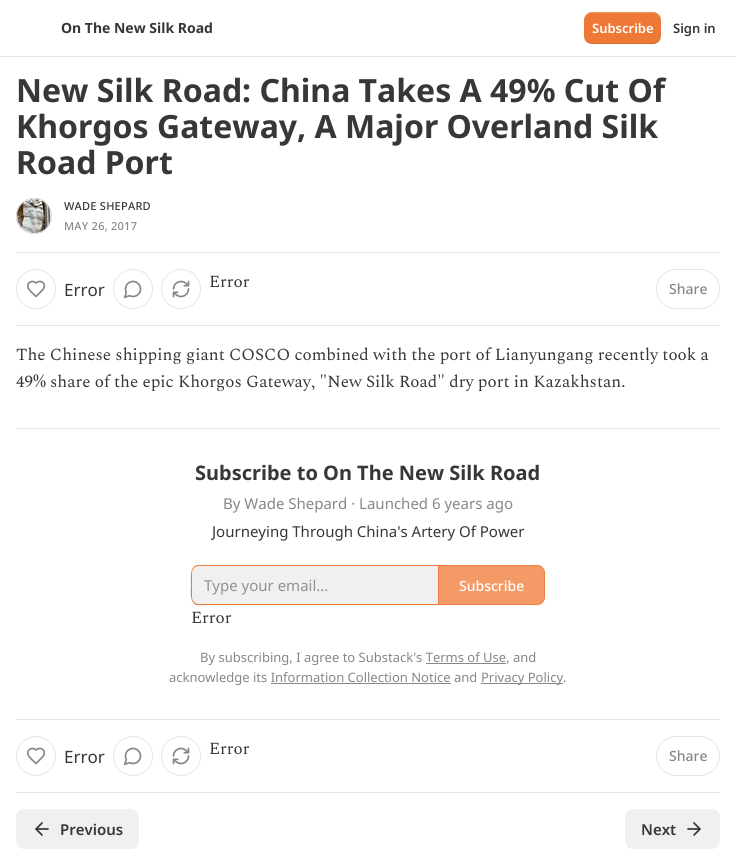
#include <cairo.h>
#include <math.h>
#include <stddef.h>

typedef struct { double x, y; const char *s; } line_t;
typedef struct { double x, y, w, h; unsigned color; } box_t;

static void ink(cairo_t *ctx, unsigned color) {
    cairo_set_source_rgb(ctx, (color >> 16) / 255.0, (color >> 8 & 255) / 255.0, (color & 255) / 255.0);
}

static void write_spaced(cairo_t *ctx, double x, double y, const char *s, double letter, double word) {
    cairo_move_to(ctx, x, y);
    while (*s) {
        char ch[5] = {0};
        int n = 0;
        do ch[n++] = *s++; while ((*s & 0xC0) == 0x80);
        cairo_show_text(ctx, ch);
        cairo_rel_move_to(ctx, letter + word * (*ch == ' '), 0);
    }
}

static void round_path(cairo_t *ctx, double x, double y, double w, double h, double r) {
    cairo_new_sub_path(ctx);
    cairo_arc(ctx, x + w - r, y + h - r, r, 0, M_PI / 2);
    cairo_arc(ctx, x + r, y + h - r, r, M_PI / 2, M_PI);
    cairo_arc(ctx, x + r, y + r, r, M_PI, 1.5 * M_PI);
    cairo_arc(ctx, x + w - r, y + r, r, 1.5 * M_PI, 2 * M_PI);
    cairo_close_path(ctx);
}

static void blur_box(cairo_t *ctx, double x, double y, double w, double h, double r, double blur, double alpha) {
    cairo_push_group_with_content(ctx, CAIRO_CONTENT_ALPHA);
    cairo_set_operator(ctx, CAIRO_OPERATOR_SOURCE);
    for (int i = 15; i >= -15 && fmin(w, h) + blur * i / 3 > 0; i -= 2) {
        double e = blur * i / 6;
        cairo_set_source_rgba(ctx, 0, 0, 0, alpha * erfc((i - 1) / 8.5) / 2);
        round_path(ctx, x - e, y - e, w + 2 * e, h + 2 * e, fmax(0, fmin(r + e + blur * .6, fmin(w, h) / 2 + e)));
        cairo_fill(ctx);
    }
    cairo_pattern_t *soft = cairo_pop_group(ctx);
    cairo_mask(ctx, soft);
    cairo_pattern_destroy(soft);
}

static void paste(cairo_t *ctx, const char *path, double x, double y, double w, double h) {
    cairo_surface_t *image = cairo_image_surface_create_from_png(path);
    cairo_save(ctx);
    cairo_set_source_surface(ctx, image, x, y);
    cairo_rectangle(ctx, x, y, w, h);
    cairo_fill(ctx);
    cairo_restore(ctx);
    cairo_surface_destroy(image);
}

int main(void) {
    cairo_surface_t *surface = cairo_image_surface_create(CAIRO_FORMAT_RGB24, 736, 853);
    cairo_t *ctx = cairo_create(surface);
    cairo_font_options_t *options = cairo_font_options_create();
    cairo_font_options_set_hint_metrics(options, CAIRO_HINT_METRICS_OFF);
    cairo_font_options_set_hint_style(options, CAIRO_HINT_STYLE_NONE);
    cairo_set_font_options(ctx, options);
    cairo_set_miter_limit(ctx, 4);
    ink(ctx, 0xFFFFFF);
    cairo_paint(ctx);
    ink(ctx, 0xE6E6E6);
    cairo_rectangle(ctx, 0, 56, 736, 1);
    cairo_fill(ctx);
    cairo_select_font_face(ctx, "Noto Sans", CAIRO_FONT_SLANT_NORMAL, CAIRO_FONT_WEIGHT_BOLD);
    cairo_set_font_size(ctx, 14);
    ink(ctx, 0x363737);
    cairo_move_to(ctx, 61, 33);
    cairo_show_text(ctx, "On The New Silk Road");
    ink(ctx, 0xEE7835);
    round_path(ctx, 584, 12, 77, 32, 8);
    cairo_fill(ctx);
    cairo_set_source_rgba(ctx, 0, 0, 0, 0.1);
    cairo_new_path(ctx);
    cairo_move_to(ctx, 584, 35);
    cairo_curve_to(ctx, 584, 46, 594, 44, 602, 44);
    cairo_line_to(ctx, 643, 44);
    cairo_curve_to(ctx, 651, 44, 661, 46, 661, 35);
    cairo_curve_to(ctx, 661, 39, 657, 43, 653, 43);
    cairo_line_to(ctx, 592, 43);
    cairo_curve_to(ctx, 588, 43, 584, 39, 584, 35);
    cairo_close_path(ctx);
    cairo_fill(ctx);
    cairo_set_source_rgba(ctx, 1, 1, 1, 0.2);
    cairo_new_path(ctx);
    cairo_move_to(ctx, 592, 13);
    cairo_line_to(ctx, 653, 13);
    cairo_curve_to(ctx, 657, 13, 661, 17, 661, 21);
    cairo_curve_to(ctx, 661, 10, 651, 12, 643, 12);
    cairo_line_to(ctx, 602, 12);
    cairo_curve_to(ctx, 594, 12, 584, 10, 584, 21);
    cairo_curve_to(ctx, 584, 17, 588, 13, 592, 13);
    cairo_close_path(ctx);
    cairo_fill(ctx);
    cairo_select_font_face(ctx, "Noto Sans SemiBold", CAIRO_FONT_SLANT_NORMAL, CAIRO_FONT_WEIGHT_NORMAL);
    cairo_set_font_size(ctx, 13);
    ink(ctx, 0xFFFFFF);
    cairo_move_to(ctx, 592, 33);
    cairo_show_text(ctx, "Subscribe");
    ink(ctx, 0x363737);
    cairo_move_to(ctx, 673, 33);
    cairo_show_text(ctx, "Sign in");
    cairo_select_font_face(ctx, "Noto Sans", CAIRO_FONT_SLANT_NORMAL, CAIRO_FONT_WEIGHT_BOLD);
    cairo_set_font_size(ctx, 32);
    {
        static const line_t items[] = {
            {16, 102, "New Silk Road: China Takes A 49% Cut Of"},
            {16, 138, "Khorgos Gateway, A Major Overland Silk"},
            {16, 174, "Road Port"},
        };
        for (size_t i = 0; i < sizeof items / sizeof *items; i++) {
            cairo_move_to(ctx, items[i].x, items[i].y);
            cairo_show_text(ctx, items[i].s);
        }
    }
    cairo_new_path(ctx);
    cairo_arc(ctx, 34, 216, 17.5, 0, 2 * M_PI);
    ink(ctx, 0xE6E6E6);
    cairo_set_line_width(ctx, 1);
    cairo_stroke(ctx);
    paste(ctx, "media/1.png", 16, 198, 36, 36);
    cairo_arc(ctx, 34, 216, 17.5, 0, 2 * M_PI);
    cairo_stroke(ctx);
    cairo_select_font_face(ctx, "Noto Sans Medium", CAIRO_FONT_SLANT_NORMAL, CAIRO_FONT_WEIGHT_NORMAL);
    cairo_set_font_size(ctx, 11);
    ink(ctx, 0x363737);
    write_spaced(ctx, 64, 210, "WADE SHEPARD", 0.25, 0);
    ink(ctx, 0x868787);
    write_spaced(ctx, 64, 230, "MAY 26, 2017", 0.25, 0);
    ink(ctx, 0xE6E6E6);
    cairo_rectangle(ctx, 16, 252, 704, 1);
    cairo_fill(ctx);
    cairo_rectangle(ctx, 16, 325, 704, 1);
    cairo_fill(ctx);
    cairo_arc(ctx, 133, 289, 19.5, 0, 2 * M_PI);
    cairo_stroke(ctx);
    paste(ctx, "media/2.png", 123, 280, 19, 19);
    cairo_arc(ctx, 181, 289, 19.5, 0, 2 * M_PI);
    cairo_stroke(ctx);
    paste(ctx, "media/3.png", 172, 280, 18, 18);
    cairo_select_font_face(ctx, "Spectral", CAIRO_FONT_SLANT_NORMAL, CAIRO_FONT_WEIGHT_NORMAL);
    cairo_set_font_size(ctx, 17);
    ink(ctx, 0x363737);
    cairo_move_to(ctx, 209, 287);
    cairo_show_text(ctx, "Error");
    cairo_new_path(ctx);
    cairo_arc(ctx, 36, 289, 19.5, 0, 2 * M_PI);
    ink(ctx, 0xE6E6E6);
    cairo_stroke(ctx);
    cairo_new_path(ctx);
    cairo_move_to(ctx, 42, 290.5);
    cairo_curve_to(ctx, 48, 284.5, 41, 278.5, 36, 283);
    cairo_curve_to(ctx, 32.5, 279.5, 26.5, 282.5, 28, 287.5);
    cairo_curve_to(ctx, 29, 290.5, 34, 294.5, 36, 296.5);
    cairo_close_path(ctx);
    ink(ctx, 0x868787);
    cairo_set_line_width(ctx, 1.7);
    cairo_set_line_cap(ctx, CAIRO_LINE_CAP_ROUND);
    cairo_set_line_join(ctx, CAIRO_LINE_JOIN_ROUND);
    cairo_stroke(ctx);
    cairo_select_font_face(ctx, "Noto Sans", CAIRO_FONT_SLANT_NORMAL, CAIRO_FONT_WEIGHT_NORMAL);
    ink(ctx, 0x363737);
    cairo_move_to(ctx, 64, 296);
    cairo_show_text(ctx, "Error");
    round_path(ctx, 656.5, 269.5, 63, 39, 19.5);
    ink(ctx, 0xE6E6E6);
    cairo_set_line_width(ctx, 1);
    cairo_set_line_cap(ctx, CAIRO_LINE_CAP_BUTT);
    cairo_set_line_join(ctx, CAIRO_LINE_JOIN_MITER);
    cairo_stroke(ctx);
    cairo_select_font_face(ctx, "Noto Sans Medium", CAIRO_FONT_SLANT_NORMAL, CAIRO_FONT_WEIGHT_NORMAL);
    cairo_set_font_size(ctx, 14);
    ink(ctx, 0x868787);
    cairo_move_to(ctx, 669, 294);
    cairo_show_text(ctx, "Share");
    cairo_select_font_face(ctx, "Spectral", CAIRO_FONT_SLANT_NORMAL, CAIRO_FONT_WEIGHT_NORMAL);
    cairo_set_font_size(ctx, 17);
    ink(ctx, 0x363737);
    cairo_move_to(ctx, 16, 360);
    cairo_show_text(ctx, "The Chinese shipping giant COSCO combined with the port of Lianyungang recently took a");
    cairo_move_to(ctx, 16, 387);
    cairo_show_text(ctx, "49% share of the epic Khorgos Gateway, \"New Silk Road\" dry port in Kazakhstan.");
    ink(ctx, 0xE6E6E6);
    cairo_rectangle(ctx, 16, 428, 704, 1);
    cairo_fill(ctx);
    cairo_select_font_face(ctx, "Noto Sans", CAIRO_FONT_SLANT_NORMAL, CAIRO_FONT_WEIGHT_BOLD);
    cairo_set_font_size(ctx, 20);
    ink(ctx, 0x363737);
    cairo_move_to(ctx, 195, 480);
    cairo_show_text(ctx, "Subscribe to On The New Silk Road");
    cairo_select_font_face(ctx, "Noto Sans", CAIRO_FONT_SLANT_NORMAL, CAIRO_FONT_WEIGHT_NORMAL);
    cairo_set_font_size(ctx, 15);
    ink(ctx, 0x868787);
    cairo_move_to(ctx, 223, 509);
    cairo_show_text(ctx, "By Wade Shepard · Launched 6 years ago");
    ink(ctx, 0x363737);
    cairo_move_to(ctx, 212, 537);
    cairo_show_text(ctx, "Journeying Through China's Artery Of Power");
    ink(ctx, 0x000000);
    blur_box(ctx, 191, 566, 247, 40, 8, 1, 0.05);
    ink(ctx, 0xF0F0F0);
    cairo_new_path(ctx);
    cairo_move_to(ctx, 199, 566);
    cairo_line_to(ctx, 438, 566);
    cairo_line_to(ctx, 438, 604);
    cairo_line_to(ctx, 199, 604);
    cairo_curve_to(ctx, 195, 604, 192, 601, 192, 597);
    cairo_line_to(ctx, 192, 573);
    cairo_curve_to(ctx, 192, 569, 195, 566, 199, 566);
    cairo_close_path(ctx);
    cairo_fill(ctx);
    ink(ctx, 0xEE7835);
    cairo_set_fill_rule(ctx, CAIRO_FILL_RULE_EVEN_ODD);
    cairo_new_path(ctx);
    cairo_move_to(ctx, 199, 565);
    cairo_line_to(ctx, 438, 565);
    cairo_line_to(ctx, 438, 605);
    cairo_line_to(ctx, 197, 605);
    cairo_curve_to(ctx, 189, 603, 191, 591, 191, 585);
    cairo_curve_to(ctx, 191, 578, 189, 565, 199, 565);
    cairo_close_path(ctx);
    cairo_move_to(ctx, 199, 566);
    cairo_line_to(ctx, 438, 566);
    cairo_line_to(ctx, 438, 604);
    cairo_line_to(ctx, 199, 604);
    cairo_curve_to(ctx, 195, 604, 192, 601, 192, 597);
    cairo_line_to(ctx, 192, 573);
    cairo_curve_to(ctx, 192, 569, 195, 566, 199, 566);
    cairo_close_path(ctx);
    cairo_fill(ctx);
    ink(ctx, 0x929292);
    cairo_move_to(ctx, 204, 591);
    cairo_show_text(ctx, "Type your email...");
    cairo_set_source_rgba(ctx, 0.933, 0.471, 0.208, 0.75);
    cairo_new_path(ctx);
    cairo_move_to(ctx, 438, 565);
    cairo_line_to(ctx, 537, 565);
    cairo_curve_to(ctx, 541.5, 565, 545, 568.5, 545, 573);
    cairo_line_to(ctx, 545, 597);
    cairo_curve_to(ctx, 545, 601.5, 541.5, 605, 537, 605);
    cairo_line_to(ctx, 438, 605);
    cairo_close_path(ctx);
    cairo_fill(ctx);
    cairo_new_path(ctx);
    cairo_move_to(ctx, 438.5, 565.5);
    cairo_line_to(ctx, 537, 565.5);
    cairo_curve_to(ctx, 541, 565.5, 544.5, 569, 544.5, 573);
    cairo_line_to(ctx, 544.5, 597);
    cairo_curve_to(ctx, 544.5, 601, 541, 604.5, 537, 604.5);
    cairo_line_to(ctx, 438.5, 604.5);
    cairo_close_path(ctx);
    cairo_stroke(ctx);
    cairo_select_font_face(ctx, "Noto Sans Medium", CAIRO_FONT_SLANT_NORMAL, CAIRO_FONT_WEIGHT_NORMAL);
    cairo_set_font_size(ctx, 14);
    ink(ctx, 0xFFFFFF);
    cairo_move_to(ctx, 459, 591);
    cairo_show_text(ctx, "Subscribe");
    cairo_select_font_face(ctx, "Spectral", CAIRO_FONT_SLANT_NORMAL, CAIRO_FONT_WEIGHT_NORMAL);
    cairo_set_font_size(ctx, 17);
    ink(ctx, 0x363737);
    cairo_move_to(ctx, 191, 623);
    cairo_show_text(ctx, "Error");
    cairo_select_font_face(ctx, "Noto Sans", CAIRO_FONT_SLANT_NORMAL, CAIRO_FONT_WEIGHT_NORMAL);
    cairo_set_font_size(ctx, 13);
    ink(ctx, 0x868787);
    cairo_move_to(ctx, 200, 662);
    cairo_show_text(ctx, "By subscribing, I agree to Substack's Terms of Use, and");
    cairo_rectangle(ctx, 426, 663, 80, 1);
    cairo_fill(ctx);
    cairo_move_to(ctx, 169, 682);
    cairo_show_text(ctx, "acknowledge its Information Collection Notice and");
    cairo_rectangle(ctx, 481, 683, 82, 1);
    cairo_fill(ctx);
    cairo_move_to(ctx, 481, 682);
    cairo_show_text(ctx, "Privacy Policy.");
    {
        static const box_t items[] = {
            {271, 683, 180, 1, 0x868787},
            {16, 719, 704, 1, 0xE6E6E6},
            {16, 792, 704, 1, 0xE6E6E6},
        };
        for (size_t i = 0; i < sizeof items / sizeof *items; i++) {
            ink(ctx, items[i].color);
            cairo_rectangle(ctx, items[i].x, items[i].y, items[i].w, items[i].h);
            cairo_fill(ctx);
        }
    }
    cairo_new_path(ctx);
    cairo_arc(ctx, 133, 756, 19.5, 0, 2 * M_PI);
    cairo_stroke(ctx);
    paste(ctx, "media/2.png", 123, 747, 19, 19);
    cairo_arc(ctx, 181, 756, 19.5, 0, 2 * M_PI);
    cairo_stroke(ctx);
    paste(ctx, "media/3.png", 172, 747, 18, 18);
    cairo_select_font_face(ctx, "Spectral", CAIRO_FONT_SLANT_NORMAL, CAIRO_FONT_WEIGHT_NORMAL);
    cairo_set_font_size(ctx, 17);
    ink(ctx, 0x363737);
    cairo_move_to(ctx, 209, 754);
    cairo_show_text(ctx, "Error");
    cairo_new_path(ctx);
    cairo_arc(ctx, 36, 756, 19.5, 0, 2 * M_PI);
    ink(ctx, 0xE6E6E6);
    cairo_stroke(ctx);
    cairo_new_path(ctx);
    cairo_move_to(ctx, 42, 757.5);
    cairo_curve_to(ctx, 48, 751.5, 41, 745.5, 36, 750);
    cairo_curve_to(ctx, 32.5, 746.5, 26.5, 749.5, 28, 754.5);
    cairo_curve_to(ctx, 29, 757.5, 34, 761.5, 36, 763.5);
    cairo_close_path(ctx);
    ink(ctx, 0x868787);
    cairo_set_line_width(ctx, 1.7);
    cairo_set_line_cap(ctx, CAIRO_LINE_CAP_ROUND);
    cairo_set_line_join(ctx, CAIRO_LINE_JOIN_ROUND);
    cairo_stroke(ctx);
    cairo_select_font_face(ctx, "Noto Sans", CAIRO_FONT_SLANT_NORMAL, CAIRO_FONT_WEIGHT_NORMAL);
    ink(ctx, 0x363737);
    cairo_move_to(ctx, 64, 763);
    cairo_show_text(ctx, "Error");
    round_path(ctx, 656.5, 736.5, 63, 39, 19.5);
    ink(ctx, 0xE6E6E6);
    cairo_set_line_width(ctx, 1);
    cairo_set_line_cap(ctx, CAIRO_LINE_CAP_BUTT);
    cairo_set_line_join(ctx, CAIRO_LINE_JOIN_MITER);
    cairo_stroke(ctx);
    cairo_select_font_face(ctx, "Noto Sans Medium", CAIRO_FONT_SLANT_NORMAL, CAIRO_FONT_WEIGHT_NORMAL);
    cairo_set_font_size(ctx, 14);
    ink(ctx, 0x868787);
    cairo_move_to(ctx, 669, 761);
    cairo_show_text(ctx, "Share");
    ink(ctx, 0xF0F0F0);
    round_path(ctx, 16, 809, 123, 40, 8);
    cairo_fill(ctx);
    cairo_new_path(ctx);
    cairo_move_to(ctx, 42, 835);
    cairo_line_to(ctx, 36, 829);
    cairo_line_to(ctx, 42, 823);
    cairo_move_to(ctx, 48, 829);
    cairo_line_to(ctx, 36, 829);
    ink(ctx, 0x363737);
    cairo_set_line_width(ctx, 1.7);
    cairo_set_line_cap(ctx, CAIRO_LINE_CAP_ROUND);
    cairo_set_line_join(ctx, CAIRO_LINE_JOIN_ROUND);
    cairo_stroke(ctx);
    cairo_select_font_face(ctx, "Noto Sans SemiBold", CAIRO_FONT_SLANT_NORMAL, CAIRO_FONT_WEIGHT_NORMAL);
    cairo_set_font_size(ctx, 15);
    cairo_move_to(ctx, 60, 835);
    cairo_show_text(ctx, "Previous");
    ink(ctx, 0xF0F0F0);
    round_path(ctx, 625, 809, 95, 40, 8);
    cairo_fill(ctx);
    ink(ctx, 0x363737);
    cairo_move_to(ctx, 641, 835);
    cairo_show_text(ctx, "Next");
    cairo_new_path(ctx);
    cairo_move_to(ctx, 688, 829);
    cairo_line_to(ctx, 700, 829);
    cairo_move_to(ctx, 694, 823);
    cairo_line_to(ctx, 700, 829);
    cairo_line_to(ctx, 694, 835);
    cairo_stroke(ctx);
    cairo_surface_write_to_png(surface, "image.png");
    cairo_font_options_destroy(options);
    cairo_destroy(ctx);
    cairo_surface_destroy(surface);
    return 0;
}
